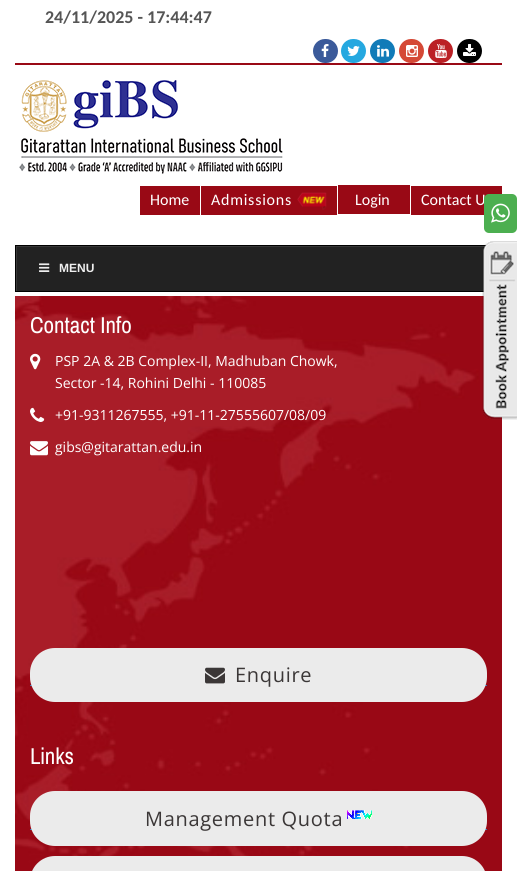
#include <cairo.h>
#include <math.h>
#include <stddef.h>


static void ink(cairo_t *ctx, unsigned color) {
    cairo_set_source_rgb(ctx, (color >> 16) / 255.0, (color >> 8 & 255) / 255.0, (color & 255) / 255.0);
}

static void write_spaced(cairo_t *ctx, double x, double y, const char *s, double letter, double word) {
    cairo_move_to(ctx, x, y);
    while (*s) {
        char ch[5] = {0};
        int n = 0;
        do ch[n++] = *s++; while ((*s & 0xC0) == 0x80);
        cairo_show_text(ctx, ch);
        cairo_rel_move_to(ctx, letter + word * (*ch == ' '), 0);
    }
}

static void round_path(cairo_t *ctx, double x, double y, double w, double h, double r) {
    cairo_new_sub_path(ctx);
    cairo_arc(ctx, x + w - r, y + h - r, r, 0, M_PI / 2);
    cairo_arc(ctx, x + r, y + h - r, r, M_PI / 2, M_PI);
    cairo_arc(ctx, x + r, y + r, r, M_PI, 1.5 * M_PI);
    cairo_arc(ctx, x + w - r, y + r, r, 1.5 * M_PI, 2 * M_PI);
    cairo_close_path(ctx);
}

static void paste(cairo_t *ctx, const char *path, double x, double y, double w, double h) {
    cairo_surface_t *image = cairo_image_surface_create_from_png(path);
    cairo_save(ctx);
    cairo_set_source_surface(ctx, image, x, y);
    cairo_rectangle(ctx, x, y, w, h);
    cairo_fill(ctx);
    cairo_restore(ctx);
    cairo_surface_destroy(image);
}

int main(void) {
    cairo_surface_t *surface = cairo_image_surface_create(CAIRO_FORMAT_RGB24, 517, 871);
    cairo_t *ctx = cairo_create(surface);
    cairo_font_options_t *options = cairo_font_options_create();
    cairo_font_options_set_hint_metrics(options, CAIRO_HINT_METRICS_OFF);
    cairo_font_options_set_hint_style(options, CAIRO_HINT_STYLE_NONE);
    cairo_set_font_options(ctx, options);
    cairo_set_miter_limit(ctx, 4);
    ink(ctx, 0xFFFFFF);
    cairo_paint(ctx);
    ink(ctx, 0x990915);
    cairo_rectangle(ctx, 15, 63, 487, 2);
    cairo_fill(ctx);
    cairo_select_font_face(ctx, "Carlito", CAIRO_FONT_SLANT_NORMAL, CAIRO_FONT_WEIGHT_BOLD);
    cairo_set_font_size(ctx, 18);
    ink(ctx, 0x555555);
    cairo_move_to(ctx, 45, 23);
    cairo_show_text(ctx, "24/11/2025 - 17:44:47");
    ink(ctx, 0x3B5A9A);
    round_path(ctx, 313, 39, 25, 24, 12);
    cairo_fill(ctx);
    paste(ctx, "media/1.png", 321, 44, 8, 13);
    ink(ctx, 0x25A8E0);
    round_path(ctx, 341, 39, 25, 24, 12);
    cairo_fill(ctx);
    paste(ctx, "media/2.png", 347, 46, 13, 10);
    ink(ctx, 0x117BB8);
    round_path(ctx, 370, 39, 25, 24, 12);
    cairo_fill(ctx);
    paste(ctx, "media/3.png", 377, 45, 12, 12);
    ink(ctx, 0xD54936);
    round_path(ctx, 399, 39, 25, 24, 12);
    cairo_fill(ctx);
    paste(ctx, "media/4.png", 406, 45, 12, 12);
    ink(ctx, 0xBB2025);
    round_path(ctx, 428, 39, 25, 24, 12);
    cairo_fill(ctx);
    paste(ctx, "media/5.png", 435, 44, 12, 14);
    ink(ctx, 0x000000);
    round_path(ctx, 457, 39, 25, 24, 12);
    cairo_fill(ctx);
    paste(ctx, "media/6.png", 463, 44, 13, 12);
    paste(ctx, "media/7.png", 19, 80, 264, 94);
    ink(ctx, 0x990915);
    cairo_rectangle(ctx, 140, 186, 60, 29);
    cairo_fill(ctx);
    cairo_select_font_face(ctx, "Carlito", CAIRO_FONT_SLANT_NORMAL, CAIRO_FONT_WEIGHT_NORMAL);
    cairo_set_font_size(ctx, 16);
    ink(ctx, 0xFFFFFF);
    cairo_move_to(ctx, 150, 205);
    cairo_show_text(ctx, "Home");
    ink(ctx, 0x990915);
    cairo_rectangle(ctx, 201, 186, 136, 29);
    cairo_fill(ctx);
    ink(ctx, 0xFFFFFF);
    write_spaced(ctx, 211, 205, "Admissions", 0.75, 0);
    paste(ctx, "media/8.png", 297, 192, 30, 18);
    ink(ctx, 0x990915);
    cairo_rectangle(ctx, 338, 185, 72, 29);
    cairo_fill(ctx);
    ink(ctx, 0xFFFFFF);
    cairo_move_to(ctx, 355, 205);
    cairo_show_text(ctx, "Login");
    ink(ctx, 0x990915);
    cairo_rectangle(ctx, 411, 186, 91, 29);
    cairo_fill(ctx);
    ink(ctx, 0xFFFFFF);
    cairo_move_to(ctx, 421, 205);
    cairo_show_text(ctx, "Contact U");
    ink(ctx, 0x222222);
    cairo_rectangle(ctx, 17, 247, 470, 44);
    cairo_fill(ctx);
    cairo_save(ctx);
    cairo_rectangle(ctx, 16, 246, 485, 45);
    cairo_clip(ctx);
    ink(ctx, 0x383838);
    cairo_set_fill_rule(ctx, CAIRO_FILL_RULE_EVEN_ODD);
    cairo_new_path(ctx);
    cairo_move_to(ctx, -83, 147);
    cairo_line_to(ctx, 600, 147);
    cairo_line_to(ctx, 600, 390);
    cairo_line_to(ctx, -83, 390);
    cairo_close_path(ctx);
    cairo_move_to(ctx, 17, 247);
    cairo_line_to(ctx, 502, 247);
    cairo_line_to(ctx, 502, 292);
    cairo_line_to(ctx, 17, 292);
    cairo_close_path(ctx);
    cairo_fill(ctx);
    cairo_restore(ctx);
    cairo_rectangle(ctx, 15.5, 245.5, 486, 46);
    ink(ctx, 0x000000);
    cairo_set_line_width(ctx, 1);
    cairo_stroke(ctx);
    paste(ctx, "media/9.png", 39, 263, 11, 9);
    cairo_select_font_face(ctx, "Liberation Sans", CAIRO_FONT_SLANT_NORMAL, CAIRO_FONT_WEIGHT_BOLD);
    cairo_set_font_size(ctx, 12);
    ink(ctx, 0xEEEEEE);
    cairo_move_to(ctx, 59, 272);
    cairo_show_text(ctx, "MENU");
    ink(ctx, 0x4CAF50);
    round_path(ctx, 484, 194, 33, 39, 5);
    cairo_fill(ctx);
    paste(ctx, "media/10.png", 491, 203, 19, 20);
    paste(ctx, "media/11.png", 15, 296, 487, 575);
    cairo_select_font_face(ctx, "Pragati Narrow", CAIRO_FONT_SLANT_NORMAL, CAIRO_FONT_WEIGHT_NORMAL);
    cairo_set_font_size(ctx, 25);
    ink(ctx, 0xFFFFFF);
    cairo_move_to(ctx, 30, 333);
    cairo_show_text(ctx, "Contact Info");
    paste(ctx, "media/12.png", 30, 353, 11, 17);
    cairo_select_font_face(ctx, "Open Sans", CAIRO_FONT_SLANT_NORMAL, CAIRO_FONT_WEIGHT_NORMAL);
    cairo_set_font_size(ctx, 14);
    cairo_move_to(ctx, 55, 366);
    cairo_show_text(ctx, "PSP 2A & 2B Complex-II, Madhuban Chowk,");
    cairo_move_to(ctx, 55, 388);
    cairo_show_text(ctx, "Sector -14, Rohini Delhi - 110085");
    paste(ctx, "media/13.png", 30, 407, 15, 15);
    cairo_move_to(ctx, 55, 420);
    cairo_show_text(ctx, "+91-9311267555, +91-11-27555607/08/09");
    paste(ctx, "media/14.png", 30, 441, 18, 15);
    cairo_move_to(ctx, 55, 452);
    cairo_show_text(ctx, "gibs@gitarattan.edu.in");
    ink(ctx, 0x337AB7);
    cairo_rectangle(ctx, 30, 685, 457, 1);
    cairo_fill(ctx);
    ink(ctx, 0xEBEBEB);
    round_path(ctx, 30, 648, 457, 54, 25);
    cairo_fill(ctx);
    paste(ctx, "media/15.png", 205, 667, 20, 17);
    cairo_set_font_size(ctx, 20);
    ink(ctx, 0x3B3737);
    write_spaced(ctx, 235, 682, "Enquire", 0.7, 0);
    cairo_select_font_face(ctx, "Pragati Narrow", CAIRO_FONT_SLANT_NORMAL, CAIRO_FONT_WEIGHT_NORMAL);
    cairo_set_font_size(ctx, 25);
    ink(ctx, 0xFFFFFF);
    cairo_move_to(ctx, 30, 764);
    cairo_show_text(ctx, "Links");
    ink(ctx, 0x337AB7);
    cairo_rectangle(ctx, 30, 829, 457, 1);
    cairo_fill(ctx);
    ink(ctx, 0xEBEBEB);
    round_path(ctx, 30, 791, 457, 55, 25);
    cairo_fill(ctx);
    cairo_select_font_face(ctx, "Open Sans", CAIRO_FONT_SLANT_NORMAL, CAIRO_FONT_WEIGHT_NORMAL);
    cairo_set_font_size(ctx, 20);
    ink(ctx, 0x3B3737);
    write_spaced(ctx, 145, 826, "Management Quota", 0.7, 0);
    paste(ctx, "media/16.png", 347, 810, 25, 9);
    ink(ctx, 0xEBEBEB);
    round_path(ctx, 30, 856, 457, 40, 25);
    cairo_fill(ctx);
    paste(ctx, "media/17.png", 482, 241, 35, 179);
    cairo_surface_write_to_png(surface, "image.png");
    cairo_font_options_destroy(options);
    cairo_destroy(ctx);
    cairo_surface_destroy(surface);
    return 0;
}
